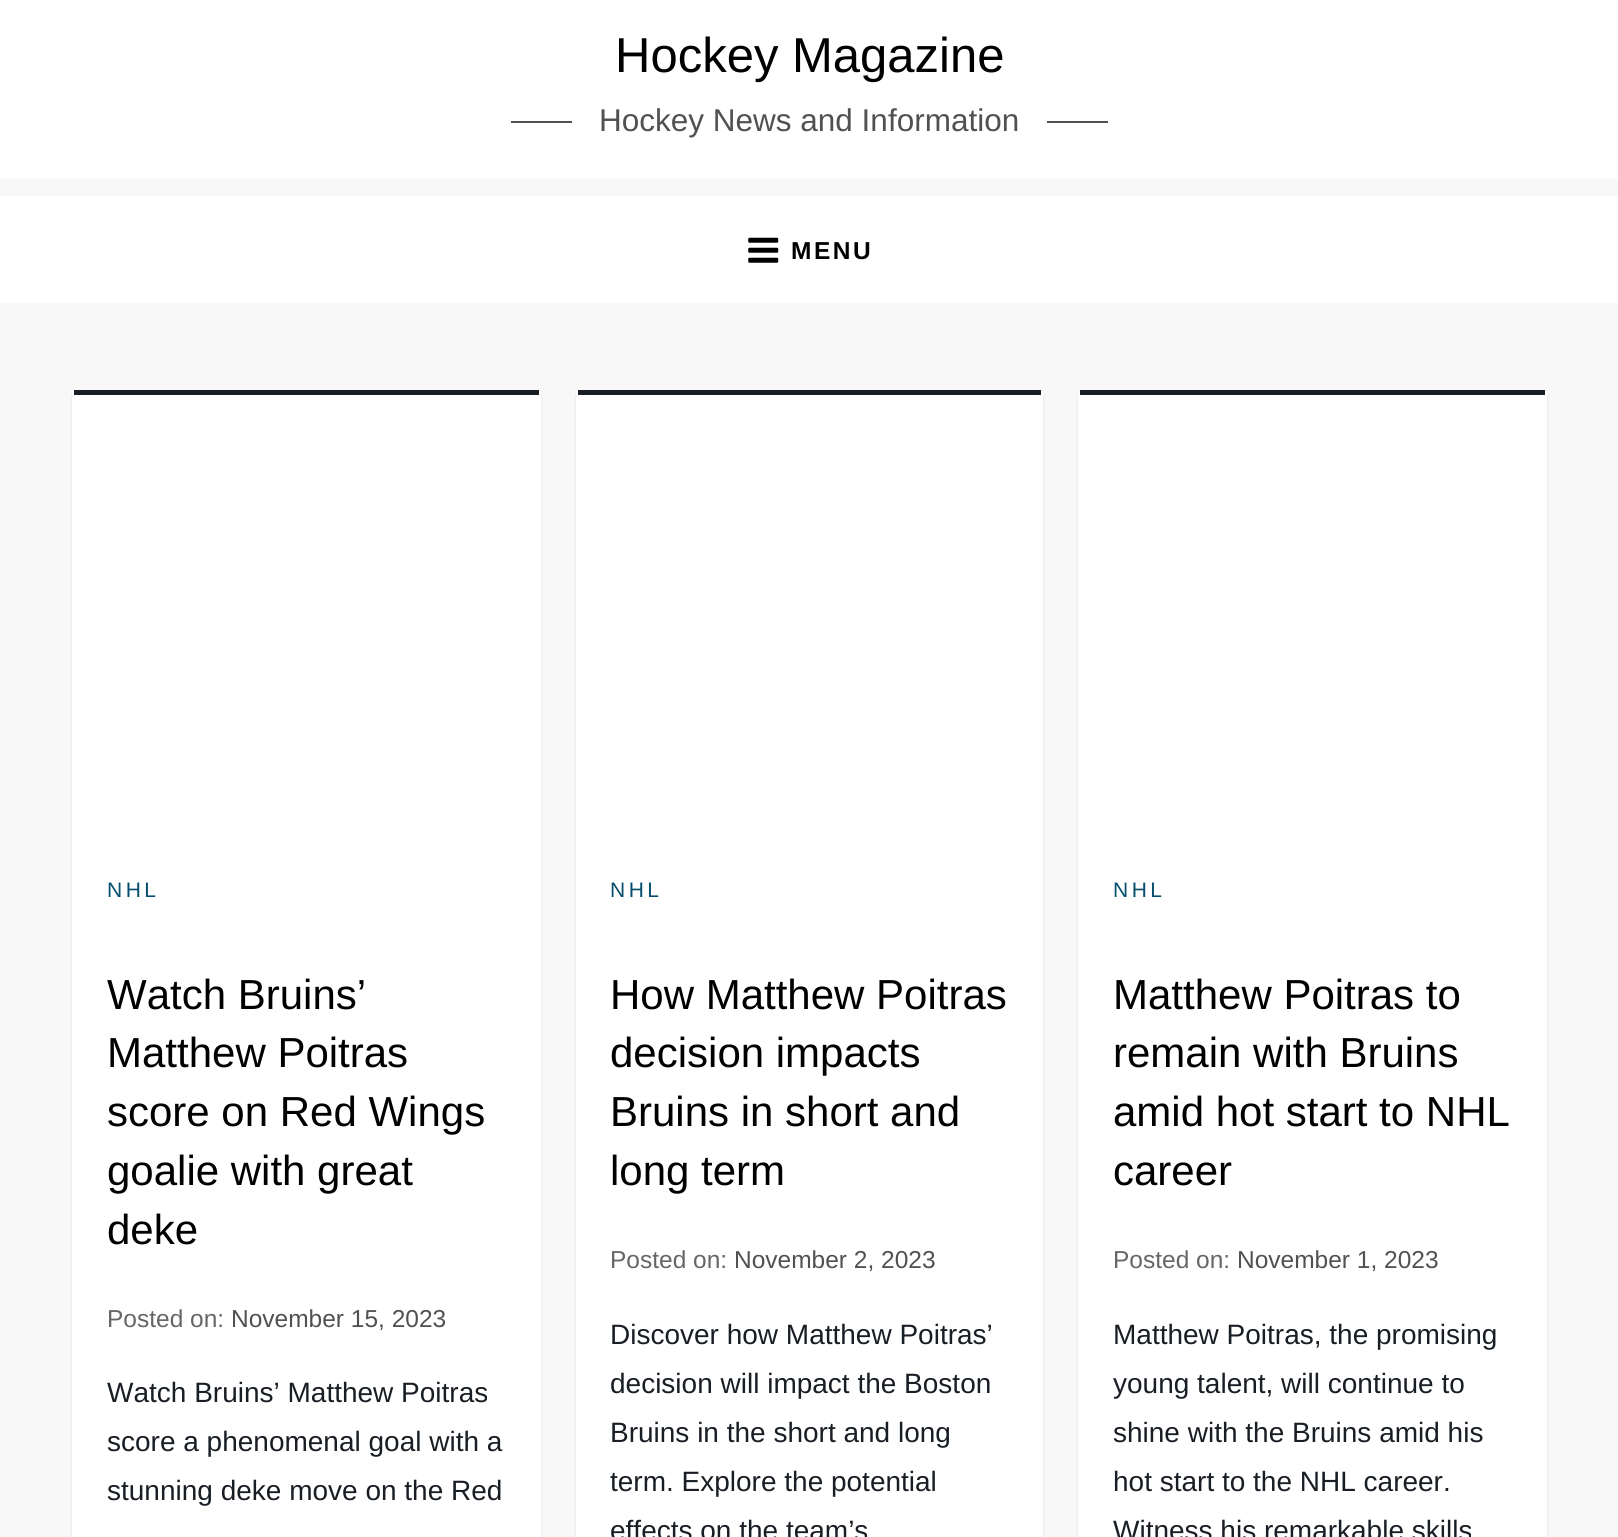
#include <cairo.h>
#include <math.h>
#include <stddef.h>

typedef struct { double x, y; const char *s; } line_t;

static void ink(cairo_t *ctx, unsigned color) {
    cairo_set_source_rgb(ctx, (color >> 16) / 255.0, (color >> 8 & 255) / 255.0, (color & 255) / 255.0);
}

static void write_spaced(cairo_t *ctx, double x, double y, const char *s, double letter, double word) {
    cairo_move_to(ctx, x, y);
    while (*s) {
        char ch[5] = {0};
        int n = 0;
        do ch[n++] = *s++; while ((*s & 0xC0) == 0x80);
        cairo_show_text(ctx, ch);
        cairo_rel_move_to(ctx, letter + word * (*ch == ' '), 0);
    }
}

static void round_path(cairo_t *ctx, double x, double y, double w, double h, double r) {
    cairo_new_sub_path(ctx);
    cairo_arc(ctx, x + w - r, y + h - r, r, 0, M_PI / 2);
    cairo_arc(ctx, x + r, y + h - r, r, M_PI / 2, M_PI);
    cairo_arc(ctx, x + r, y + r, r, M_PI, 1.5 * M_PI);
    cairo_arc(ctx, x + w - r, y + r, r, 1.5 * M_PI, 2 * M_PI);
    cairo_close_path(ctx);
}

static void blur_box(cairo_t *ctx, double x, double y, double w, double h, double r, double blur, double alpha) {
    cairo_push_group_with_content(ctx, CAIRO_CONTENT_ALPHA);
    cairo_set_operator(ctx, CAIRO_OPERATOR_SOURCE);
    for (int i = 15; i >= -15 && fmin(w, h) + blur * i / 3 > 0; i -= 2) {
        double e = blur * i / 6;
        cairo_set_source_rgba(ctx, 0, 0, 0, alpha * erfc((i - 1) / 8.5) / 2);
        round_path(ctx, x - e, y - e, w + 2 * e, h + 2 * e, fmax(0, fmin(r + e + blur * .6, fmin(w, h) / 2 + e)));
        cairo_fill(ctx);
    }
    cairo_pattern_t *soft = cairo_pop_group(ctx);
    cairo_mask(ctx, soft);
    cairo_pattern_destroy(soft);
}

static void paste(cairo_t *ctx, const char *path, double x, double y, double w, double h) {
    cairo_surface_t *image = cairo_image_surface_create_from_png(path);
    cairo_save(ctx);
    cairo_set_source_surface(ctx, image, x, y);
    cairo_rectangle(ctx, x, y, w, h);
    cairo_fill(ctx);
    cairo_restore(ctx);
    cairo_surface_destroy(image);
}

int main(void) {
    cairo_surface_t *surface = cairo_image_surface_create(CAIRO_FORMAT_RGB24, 1618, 1537);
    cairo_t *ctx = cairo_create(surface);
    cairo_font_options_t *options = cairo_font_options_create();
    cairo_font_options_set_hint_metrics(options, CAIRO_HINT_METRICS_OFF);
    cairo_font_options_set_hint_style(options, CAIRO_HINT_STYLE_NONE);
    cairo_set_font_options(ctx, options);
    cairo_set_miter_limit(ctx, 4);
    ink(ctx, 0xF8F8F8);
    cairo_paint(ctx);
    ink(ctx, 0xFFFFFF);
    cairo_rectangle(ctx, 0, 0, 1618, 303);
    cairo_fill(ctx);
    cairo_select_font_face(ctx, "Liberation Sans", CAIRO_FONT_SLANT_NORMAL, CAIRO_FONT_WEIGHT_NORMAL);
    cairo_set_font_size(ctx, 49);
    ink(ctx, 0x000000);
    cairo_move_to(ctx, 615, 72);
    cairo_show_text(ctx, "Hockey Magazine");
    ink(ctx, 0x515151);
    cairo_rectangle(ctx, 511, 121, 61, 2);
    cairo_fill(ctx);
    cairo_set_font_size(ctx, 31.5);
    cairo_move_to(ctx, 599, 131);
    cairo_show_text(ctx, "Hockey News and Information");
    cairo_rectangle(ctx, 1047, 121, 61, 2);
    cairo_fill(ctx);
    ink(ctx, 0xF8F8F8);
    cairo_rectangle(ctx, 0, 179, 1618, 17);
    cairo_fill(ctx);
    paste(ctx, "media/1.png", 748, 237, 31, 26);
    cairo_select_font_face(ctx, "Liberation Sans", CAIRO_FONT_SLANT_NORMAL, CAIRO_FONT_WEIGHT_BOLD);
    cairo_set_font_size(ctx, 24.5);
    ink(ctx, 0x000000);
    write_spaced(ctx, 791, 259, "MENU", 2.5, 0);
    ink(ctx, 0x35136D);
    blur_box(ctx, 72, 392, 469, 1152, 4, 1, 0.15);
    ink(ctx, 0xFFFFFF);
    round_path(ctx, 72, 390, 469, 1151, 4);
    cairo_fill(ctx);
    ink(ctx, 0x191E24);
    cairo_rectangle(ctx, 74, 390, 465, 5);
    cairo_fill(ctx);
    cairo_select_font_face(ctx, "Liberation Sans", CAIRO_FONT_SLANT_NORMAL, CAIRO_FONT_WEIGHT_NORMAL);
    cairo_set_font_size(ctx, 21);
    ink(ctx, 0x054E6D);
    write_spaced(ctx, 107, 897, "NHL", 3.5, 0);
    cairo_set_font_size(ctx, 42);
    ink(ctx, 0x000000);
    {
        static const line_t items[] = {
            {107, 1009, "Watch Bruins’"},
            {107, 1067, "Matthew Poitras"},
            {107, 1126, "score on Red Wings"},
            {107, 1185, "goalie with great"},
            {107, 1244, "deke"},
        };
        for (size_t i = 0; i < sizeof items / sizeof *items; i++) {
            cairo_move_to(ctx, items[i].x, items[i].y);
            cairo_show_text(ctx, items[i].s);
        }
    }
    cairo_set_font_size(ctx, 24.5);
    ink(ctx, 0x666666);
    cairo_move_to(ctx, 107, 1327);
    cairo_show_text(ctx, "Posted on:");
    ink(ctx, 0x515151);
    cairo_move_to(ctx, 231, 1327);
    cairo_show_text(ctx, "November 15, 2023");
    cairo_set_font_size(ctx, 28);
    ink(ctx, 0x191E24);
    {
        static const line_t items[] = {
            {107, 1402, "Watch Bruins’ Matthew Poitras"},
            {107, 1451, "score a phenomenal goal with a"},
            {107, 1500, "stunning deke move on the Red"},
        };
        for (size_t i = 0; i < sizeof items / sizeof *items; i++) {
            cairo_move_to(ctx, items[i].x, items[i].y);
            cairo_show_text(ctx, items[i].s);
        }
    }
    ink(ctx, 0x35136D);
    blur_box(ctx, 576, 392, 467, 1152, 4, 1, 0.15);
    ink(ctx, 0xFFFFFF);
    round_path(ctx, 576, 390, 467, 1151, 4);
    cairo_fill(ctx);
    ink(ctx, 0x191E24);
    cairo_rectangle(ctx, 578, 390, 463, 5);
    cairo_fill(ctx);
    cairo_set_font_size(ctx, 21);
    ink(ctx, 0x054E6D);
    write_spaced(ctx, 610, 897, "NHL", 3.5, 0);
    cairo_set_font_size(ctx, 42);
    ink(ctx, 0x000000);
    {
        static const line_t items[] = {
            {610, 1009, "How Matthew Poitras"},
            {610, 1067, "decision impacts"},
            {610, 1126, "Bruins in short and"},
            {610, 1185, "long term"},
        };
        for (size_t i = 0; i < sizeof items / sizeof *items; i++) {
            cairo_move_to(ctx, items[i].x, items[i].y);
            cairo_show_text(ctx, items[i].s);
        }
    }
    cairo_set_font_size(ctx, 24.5);
    ink(ctx, 0x666666);
    cairo_move_to(ctx, 610, 1268);
    cairo_show_text(ctx, "Posted on:");
    ink(ctx, 0x515151);
    cairo_move_to(ctx, 734, 1268);
    cairo_show_text(ctx, "November 2, 2023");
    cairo_set_font_size(ctx, 28);
    ink(ctx, 0x191E24);
    {
        static const line_t items[] = {
            {610, 1344, "Discover how Matthew Poitras’"},
            {610, 1393, "decision will impact the Boston"},
            {610, 1442, "Bruins in the short and long"},
            {610, 1491, "term. Explore the potential"},
            {610, 1540, "effects on the team’s"},
        };
        for (size_t i = 0; i < sizeof items / sizeof *items; i++) {
            cairo_move_to(ctx, items[i].x, items[i].y);
            cairo_show_text(ctx, items[i].s);
        }
    }
    ink(ctx, 0x35136D);
    blur_box(ctx, 1078, 392, 469, 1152, 4, 1, 0.15);
    ink(ctx, 0xFFFFFF);
    round_path(ctx, 1078, 390, 469, 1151, 4);
    cairo_fill(ctx);
    ink(ctx, 0x191E24);
    cairo_rectangle(ctx, 1080, 390, 465, 5);
    cairo_fill(ctx);
    cairo_set_font_size(ctx, 21);
    ink(ctx, 0x054E6D);
    write_spaced(ctx, 1113, 897, "NHL", 3.5, 0);
    cairo_set_font_size(ctx, 42);
    ink(ctx, 0x000000);
    {
        static const line_t items[] = {
            {1113, 1009, "Matthew Poitras to"},
            {1113, 1067, "remain with Bruins"},
            {1113, 1126, "amid hot start to NHL"},
            {1113, 1185, "career"},
        };
        for (size_t i = 0; i < sizeof items / sizeof *items; i++) {
            cairo_move_to(ctx, items[i].x, items[i].y);
            cairo_show_text(ctx, items[i].s);
        }
    }
    cairo_set_font_size(ctx, 24.5);
    ink(ctx, 0x666666);
    cairo_move_to(ctx, 1113, 1268);
    cairo_show_text(ctx, "Posted on:");
    ink(ctx, 0x515151);
    cairo_move_to(ctx, 1237, 1268);
    cairo_show_text(ctx, "November 1, 2023");
    cairo_set_font_size(ctx, 28);
    ink(ctx, 0x191E24);
    {
        static const line_t items[] = {
            {1113, 1344, "Matthew Poitras, the promising"},
            {1113, 1393, "young talent, will continue to"},
            {1113, 1442, "shine with the Bruins amid his"},
            {1113, 1491, "hot start to the NHL career."},
            {1113, 1540, "Witness his remarkable skills"},
        };
        for (size_t i = 0; i < sizeof items / sizeof *items; i++) {
            cairo_move_to(ctx, items[i].x, items[i].y);
            cairo_show_text(ctx, items[i].s);
        }
    }
    cairo_surface_write_to_png(surface, "image.png");
    cairo_font_options_destroy(options);
    cairo_destroy(ctx);
    cairo_surface_destroy(surface);
    return 0;
}
